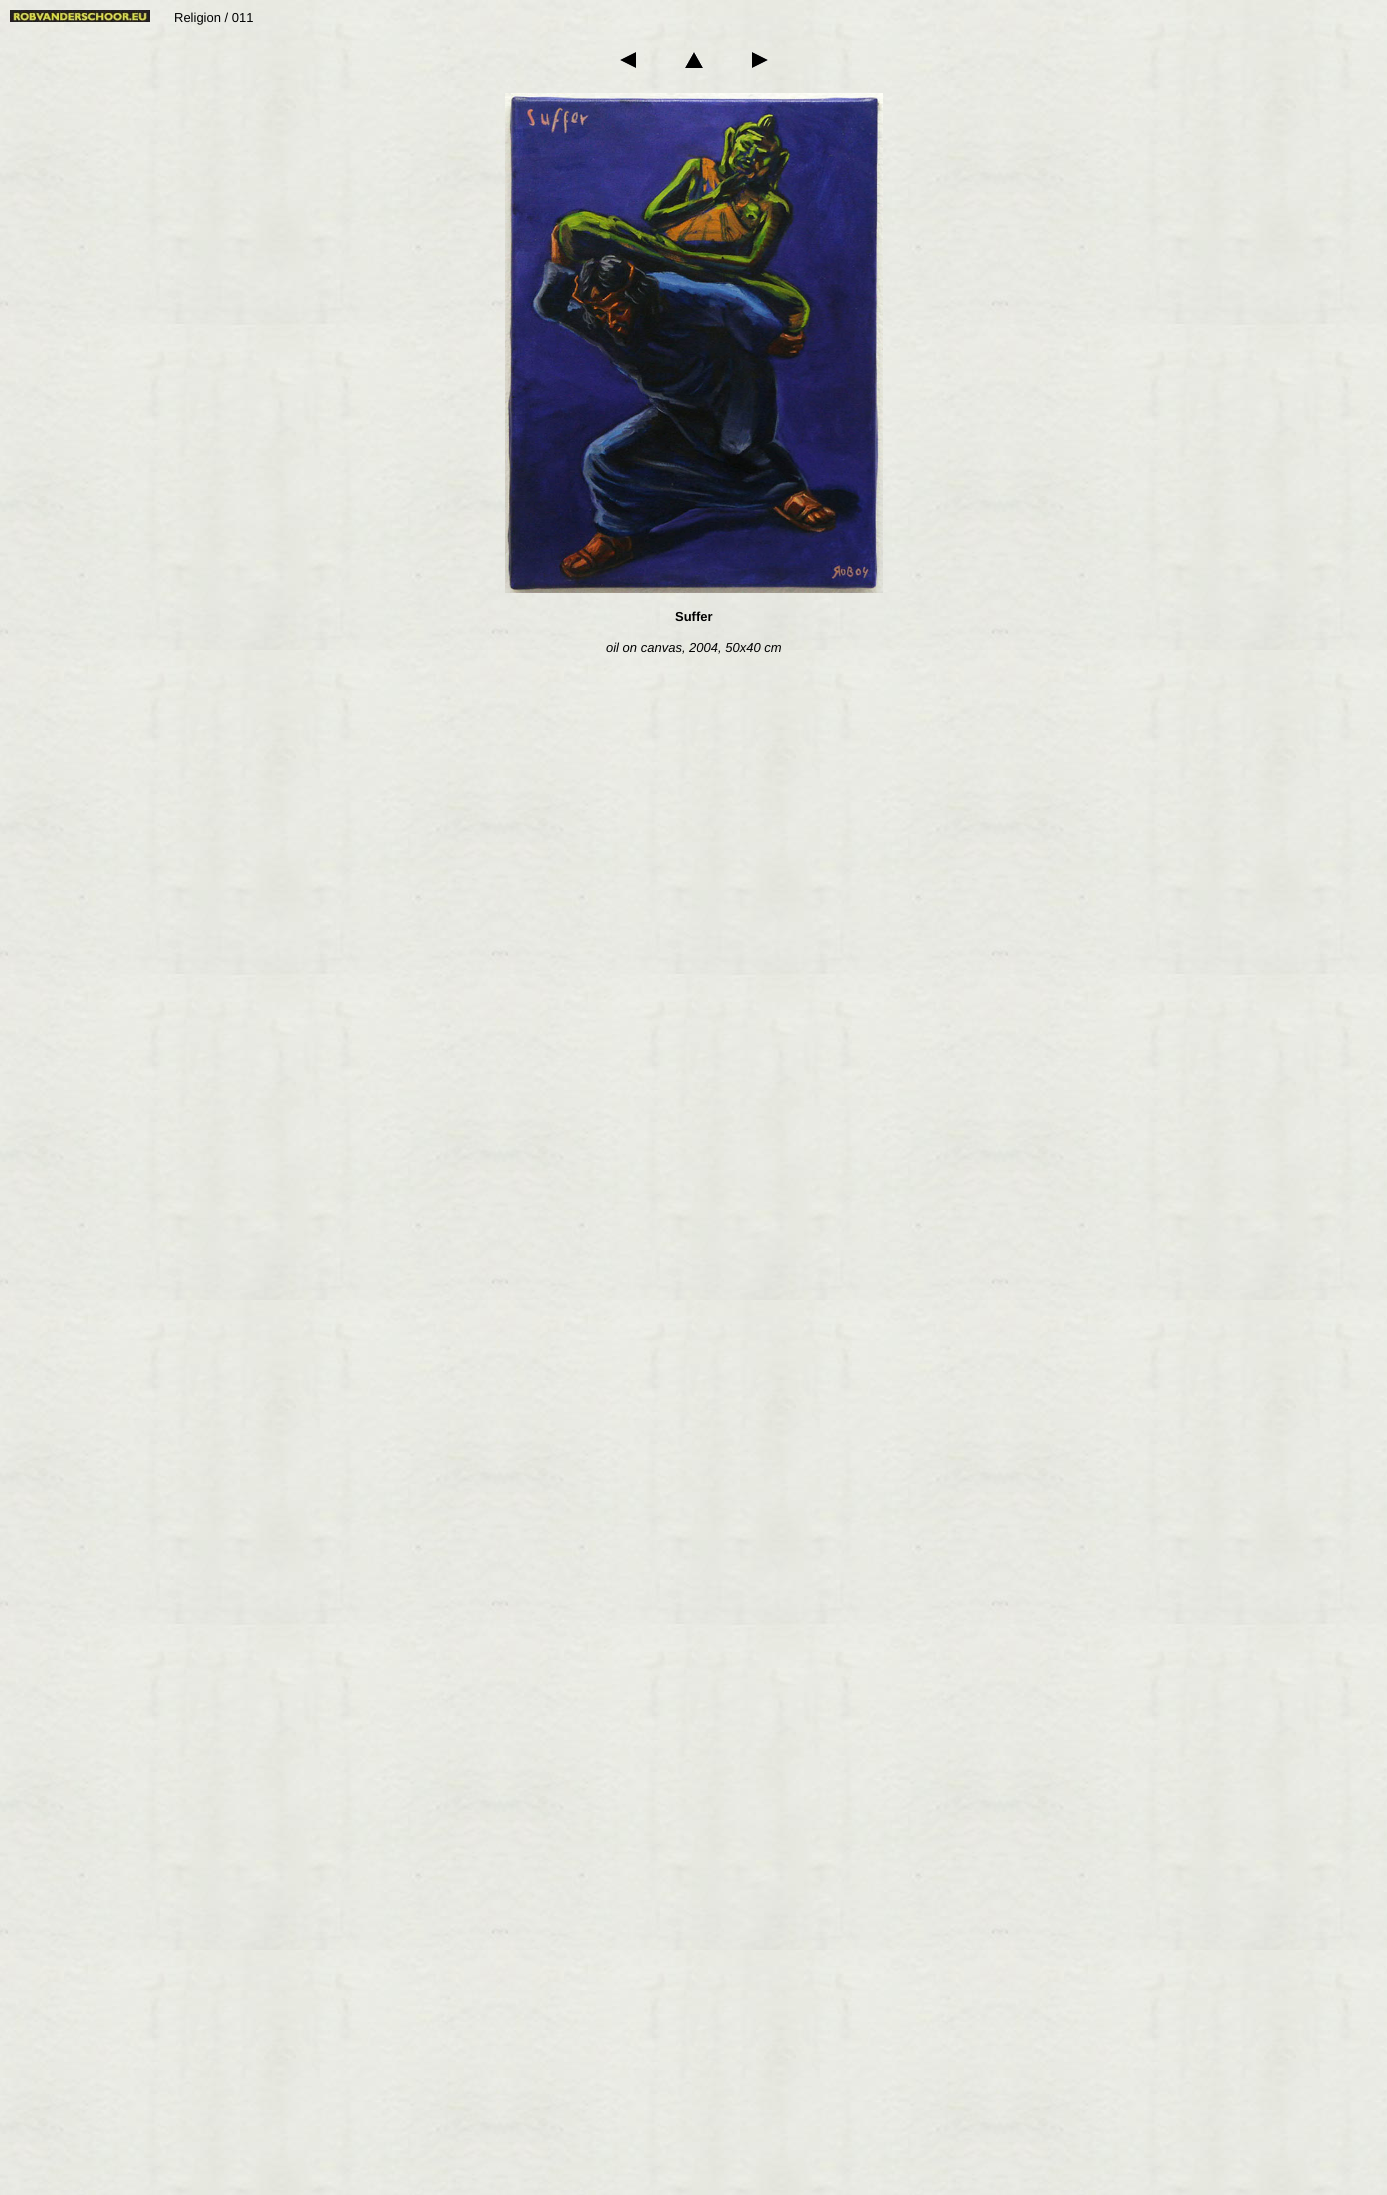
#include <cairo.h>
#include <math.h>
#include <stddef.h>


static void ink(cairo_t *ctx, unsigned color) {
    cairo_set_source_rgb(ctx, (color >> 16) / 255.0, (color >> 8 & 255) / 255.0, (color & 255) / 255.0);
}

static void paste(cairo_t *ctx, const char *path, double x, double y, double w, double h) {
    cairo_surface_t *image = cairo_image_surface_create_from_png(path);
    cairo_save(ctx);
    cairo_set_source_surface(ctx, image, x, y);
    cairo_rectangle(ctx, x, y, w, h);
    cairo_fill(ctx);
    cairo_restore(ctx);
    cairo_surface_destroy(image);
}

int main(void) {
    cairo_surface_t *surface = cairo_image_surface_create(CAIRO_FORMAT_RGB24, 1387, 2195);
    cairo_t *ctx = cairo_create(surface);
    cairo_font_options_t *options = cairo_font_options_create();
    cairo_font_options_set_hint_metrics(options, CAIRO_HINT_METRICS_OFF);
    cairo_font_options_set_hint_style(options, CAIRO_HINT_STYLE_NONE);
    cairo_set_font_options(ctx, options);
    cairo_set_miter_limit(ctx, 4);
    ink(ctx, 0xFFFFFF);
    cairo_paint(ctx);
    paste(ctx, "media/1.png", 0, 0, 1387, 2195);
    paste(ctx, "media/2.png", 10, 10, 140, 12);
    cairo_select_font_face(ctx, "Liberation Sans", CAIRO_FONT_SLANT_NORMAL, CAIRO_FONT_WEIGHT_NORMAL);
    cairo_set_font_size(ctx, 13);
    ink(ctx, 0x000000);
    cairo_move_to(ctx, 174, 22);
    cairo_show_text(ctx, "Religion / 011");
    paste(ctx, "media/3.png", 620, 52, 16, 16);
    paste(ctx, "media/4.png", 685, 52, 18, 16);
    paste(ctx, "media/5.png", 752, 52, 16, 16);
    paste(ctx, "media/6.png", 505, 93, 378, 500);
    cairo_select_font_face(ctx, "Liberation Sans", CAIRO_FONT_SLANT_NORMAL, CAIRO_FONT_WEIGHT_BOLD);
    cairo_move_to(ctx, 675, 621);
    cairo_show_text(ctx, "Suffer");
    cairo_select_font_face(ctx, "Liberation Sans", CAIRO_FONT_SLANT_ITALIC, CAIRO_FONT_WEIGHT_NORMAL);
    cairo_move_to(ctx, 606, 652);
    cairo_show_text(ctx, "oil on canvas, 2004, 50x40 cm");
    cairo_surface_write_to_png(surface, "image.png");
    cairo_font_options_destroy(options);
    cairo_destroy(ctx);
    cairo_surface_destroy(surface);
    return 0;
}
